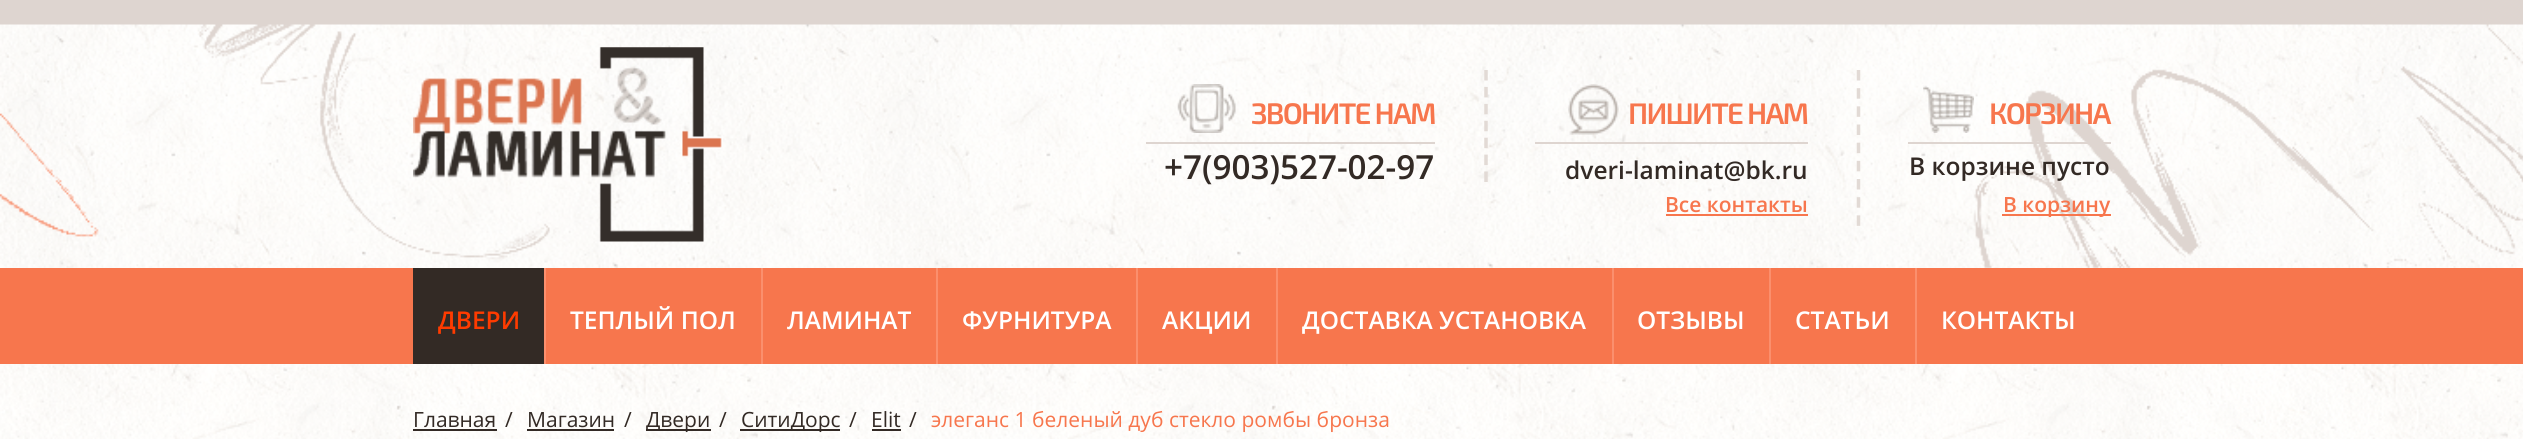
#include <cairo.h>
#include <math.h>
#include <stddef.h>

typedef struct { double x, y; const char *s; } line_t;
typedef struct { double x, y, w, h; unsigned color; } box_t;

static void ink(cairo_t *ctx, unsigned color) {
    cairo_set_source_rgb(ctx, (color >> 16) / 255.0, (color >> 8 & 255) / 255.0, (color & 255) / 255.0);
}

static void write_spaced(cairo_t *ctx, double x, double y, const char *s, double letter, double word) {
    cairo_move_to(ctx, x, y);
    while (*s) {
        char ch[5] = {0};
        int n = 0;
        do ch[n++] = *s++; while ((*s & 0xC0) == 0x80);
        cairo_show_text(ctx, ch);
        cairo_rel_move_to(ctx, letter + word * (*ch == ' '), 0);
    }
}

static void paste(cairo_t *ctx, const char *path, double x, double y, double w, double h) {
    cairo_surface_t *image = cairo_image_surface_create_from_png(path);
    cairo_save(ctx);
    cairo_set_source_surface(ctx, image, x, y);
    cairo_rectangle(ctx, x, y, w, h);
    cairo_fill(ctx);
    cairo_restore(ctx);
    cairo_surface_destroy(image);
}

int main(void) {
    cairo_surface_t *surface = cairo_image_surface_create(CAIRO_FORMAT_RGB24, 2523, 439);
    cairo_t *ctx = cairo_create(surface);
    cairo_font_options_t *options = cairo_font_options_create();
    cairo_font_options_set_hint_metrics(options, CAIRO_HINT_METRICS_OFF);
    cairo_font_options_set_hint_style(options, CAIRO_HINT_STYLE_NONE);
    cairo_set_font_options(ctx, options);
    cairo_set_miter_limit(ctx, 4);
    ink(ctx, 0xFFFFFF);
    cairo_paint(ctx);
    paste(ctx, "media/1.png", 0, 267, 2523, 172);
    paste(ctx, "media/2.png", 0, 0, 2523, 268);
    paste(ctx, "media/3.png", 413, 47, 310, 195);
    cairo_new_path(ctx);
    cairo_move_to(ctx, 1486, 70);
    cairo_line_to(ctx, 1486, 182);
    ink(ctx, 0xE2DAD5);
    cairo_set_line_width(ctx, 3.5);
    cairo_set_dash(ctx, (double[]){10.5, 6.42}, 2, 0);
    cairo_stroke(ctx);
    paste(ctx, "media/4.png", 1177, 84, 59, 49);
    ink(ctx, 0xDED5D0);
    cairo_rectangle(ctx, 1146, 142, 289, 2);
    cairo_fill(ctx);
    cairo_select_font_face(ctx, "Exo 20 SemiBold", CAIRO_FONT_SLANT_NORMAL, CAIRO_FONT_WEIGHT_NORMAL);
    cairo_set_font_size(ctx, 29.75);
    ink(ctx, 0xF7764D);
    write_spaced(ctx, 1251, 124, "ЗВОНИТЕ НАМ", -1.75, 0);
    cairo_select_font_face(ctx, "Open Sans SemiBold", CAIRO_FONT_SLANT_NORMAL, CAIRO_FONT_WEIGHT_NORMAL);
    cairo_set_font_size(ctx, 33.25);
    ink(ctx, 0x332A25);
    cairo_move_to(ctx, 1164, 179);
    cairo_show_text(ctx, "+7(903)527-02-97");
    cairo_new_path(ctx);
    cairo_move_to(ctx, 1858.5, 70);
    cairo_line_to(ctx, 1858.5, 226);
    ink(ctx, 0xE2DAD5);
    cairo_set_dash(ctx, (double[]){10.5, 7.67}, 2, 0);
    cairo_stroke(ctx);
    paste(ctx, "media/5.png", 1568, 84, 51, 51);
    ink(ctx, 0xDED5D0);
    cairo_rectangle(ctx, 1535, 142, 273, 2);
    cairo_fill(ctx);
    cairo_select_font_face(ctx, "Exo 20 SemiBold", CAIRO_FONT_SLANT_NORMAL, CAIRO_FONT_WEIGHT_NORMAL);
    cairo_set_font_size(ctx, 29.75);
    ink(ctx, 0xF7764D);
    write_spaced(ctx, 1628, 124, "ПИШИТЕ НАМ", -1.75, 0);
    cairo_select_font_face(ctx, "Open Sans SemiBold", CAIRO_FONT_SLANT_NORMAL, CAIRO_FONT_WEIGHT_NORMAL);
    cairo_set_font_size(ctx, 24.5);
    ink(ctx, 0x332A25);
    cairo_move_to(ctx, 1565, 179);
    cairo_show_text(ctx, "dveri-laminat@bk.ru");
    cairo_set_font_size(ctx, 21);
    ink(ctx, 0xF7764D);
    cairo_move_to(ctx, 1665, 212);
    cairo_show_text(ctx, "Все контакты");
    cairo_rectangle(ctx, 1666, 214, 142, 2);
    cairo_fill(ctx);
    paste(ctx, "media/6.png", 1923, 85, 51, 48);
    ink(ctx, 0xDED5D0);
    cairo_rectangle(ctx, 1908, 142, 203, 2);
    cairo_fill(ctx);
    cairo_select_font_face(ctx, "Exo 20 SemiBold", CAIRO_FONT_SLANT_NORMAL, CAIRO_FONT_WEIGHT_NORMAL);
    cairo_set_font_size(ctx, 29.75);
    ink(ctx, 0xF7764D);
    write_spaced(ctx, 1989, 124, "КОРЗИНА", -1.75, 0);
    cairo_select_font_face(ctx, "Open Sans SemiBold", CAIRO_FONT_SLANT_NORMAL, CAIRO_FONT_WEIGHT_NORMAL);
    cairo_set_font_size(ctx, 24.5);
    ink(ctx, 0x332A25);
    cairo_move_to(ctx, 1909, 175);
    cairo_show_text(ctx, "В корзине пусто");
    ink(ctx, 0xF7764D);
    cairo_rectangle(ctx, 2002, 214, 109, 2);
    cairo_fill(ctx);
    cairo_set_font_size(ctx, 21);
    cairo_move_to(ctx, 2003, 212);
    cairo_show_text(ctx, "В корзину");
    {
        static const box_t items[] = {
            {0, 268, 2523, 96, 0xF7764D},
            {544, 268, 2, 96, 0xFB8F6D},
            {413, 268, 131, 96, 0x332A25},
        };
        for (size_t i = 0; i < sizeof items / sizeof *items; i++) {
            ink(ctx, items[i].color);
            cairo_rectangle(ctx, items[i].x, items[i].y, items[i].w, items[i].h);
            cairo_fill(ctx);
        }
    }
    cairo_set_font_size(ctx, 24.5);
    ink(ctx, 0xFF3B00);
    cairo_move_to(ctx, 438, 329);
    cairo_show_text(ctx, "ДВЕРИ");
    ink(ctx, 0xFB8F6D);
    cairo_rectangle(ctx, 761, 268, 2, 96);
    cairo_fill(ctx);
    ink(ctx, 0xFFFFFF);
    cairo_move_to(ctx, 570, 329);
    cairo_show_text(ctx, "ТЕПЛЫЙ ПОЛ");
    ink(ctx, 0xFB8F6D);
    cairo_rectangle(ctx, 936, 268, 2, 96);
    cairo_fill(ctx);
    ink(ctx, 0xFFFFFF);
    cairo_move_to(ctx, 787, 329);
    cairo_show_text(ctx, "ЛАМИНАТ");
    ink(ctx, 0xFB8F6D);
    cairo_rectangle(ctx, 1136, 268, 2, 96);
    cairo_fill(ctx);
    ink(ctx, 0xFFFFFF);
    cairo_move_to(ctx, 962, 329);
    cairo_show_text(ctx, "ФУРНИТУРА");
    ink(ctx, 0xFB8F6D);
    cairo_rectangle(ctx, 1276, 268, 2, 96);
    cairo_fill(ctx);
    ink(ctx, 0xFFFFFF);
    cairo_move_to(ctx, 1162, 329);
    cairo_show_text(ctx, "АКЦИИ");
    ink(ctx, 0xFB8F6D);
    cairo_rectangle(ctx, 1612, 268, 2, 96);
    cairo_fill(ctx);
    ink(ctx, 0xFFFFFF);
    cairo_move_to(ctx, 1302, 329);
    cairo_show_text(ctx, "ДОСТАВКА УСТАНОВКА");
    ink(ctx, 0xFB8F6D);
    cairo_rectangle(ctx, 1769, 268, 2, 96);
    cairo_fill(ctx);
    ink(ctx, 0xFFFFFF);
    cairo_move_to(ctx, 1637, 329);
    cairo_show_text(ctx, "ОТЗЫВЫ");
    ink(ctx, 0xFB8F6D);
    cairo_rectangle(ctx, 1915, 268, 2, 96);
    cairo_fill(ctx);
    ink(ctx, 0xFFFFFF);
    cairo_move_to(ctx, 1795, 329);
    cairo_show_text(ctx, "СТАТЬИ");
    cairo_move_to(ctx, 1941, 329);
    cairo_show_text(ctx, "КОНТАКТЫ");
    cairo_select_font_face(ctx, "Open Sans", CAIRO_FONT_SLANT_NORMAL, CAIRO_FONT_WEIGHT_NORMAL);
    cairo_set_font_size(ctx, 21);
    ink(ctx, 0x332A25);
    cairo_move_to(ctx, 413, 427);
    cairo_show_text(ctx, "Главная");
    cairo_rectangle(ctx, 413, 429, 84, 2);
    cairo_fill(ctx);
    cairo_move_to(ctx, 505, 427);
    cairo_show_text(ctx, "/");
    cairo_move_to(ctx, 527, 427);
    cairo_show_text(ctx, "Магазин");
    cairo_rectangle(ctx, 527, 429, 87, 2);
    cairo_fill(ctx);
    cairo_move_to(ctx, 624, 427);
    cairo_show_text(ctx, "/");
    cairo_rectangle(ctx, 646, 429, 65, 2);
    cairo_fill(ctx);
    cairo_move_to(ctx, 646, 427);
    cairo_show_text(ctx, "Двери");
    cairo_move_to(ctx, 719, 427);
    cairo_show_text(ctx, "/");
    cairo_rectangle(ctx, 740, 429, 100, 2);
    cairo_fill(ctx);
    {
        static const line_t items[] = {
            {741, 427, "СитиДорс"},
            {849, 427, "/"},
            {871, 427, "Elit"},
        };
        for (size_t i = 0; i < sizeof items / sizeof *items; i++) {
            cairo_move_to(ctx, items[i].x, items[i].y);
            cairo_show_text(ctx, items[i].s);
        }
    }
    cairo_rectangle(ctx, 872, 429, 29, 2);
    cairo_fill(ctx);
    cairo_move_to(ctx, 909, 427);
    cairo_show_text(ctx, "/");
    ink(ctx, 0xF7764D);
    cairo_move_to(ctx, 931, 427);
    cairo_show_text(ctx, "элеганс 1 беленый дуб стекло ромбы бронза");
    cairo_surface_write_to_png(surface, "image.png");
    cairo_font_options_destroy(options);
    cairo_destroy(ctx);
    cairo_surface_destroy(surface);
    return 0;
}
